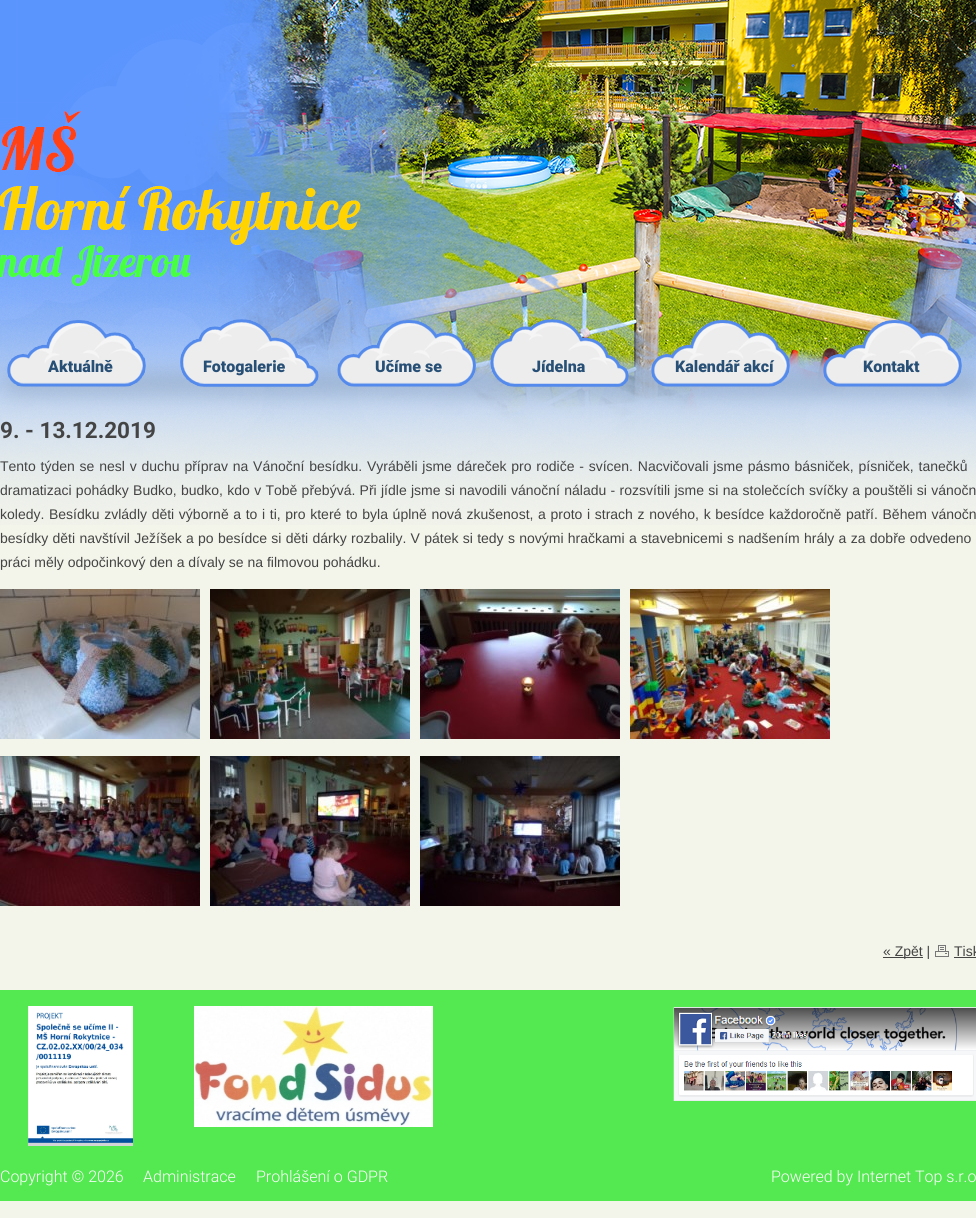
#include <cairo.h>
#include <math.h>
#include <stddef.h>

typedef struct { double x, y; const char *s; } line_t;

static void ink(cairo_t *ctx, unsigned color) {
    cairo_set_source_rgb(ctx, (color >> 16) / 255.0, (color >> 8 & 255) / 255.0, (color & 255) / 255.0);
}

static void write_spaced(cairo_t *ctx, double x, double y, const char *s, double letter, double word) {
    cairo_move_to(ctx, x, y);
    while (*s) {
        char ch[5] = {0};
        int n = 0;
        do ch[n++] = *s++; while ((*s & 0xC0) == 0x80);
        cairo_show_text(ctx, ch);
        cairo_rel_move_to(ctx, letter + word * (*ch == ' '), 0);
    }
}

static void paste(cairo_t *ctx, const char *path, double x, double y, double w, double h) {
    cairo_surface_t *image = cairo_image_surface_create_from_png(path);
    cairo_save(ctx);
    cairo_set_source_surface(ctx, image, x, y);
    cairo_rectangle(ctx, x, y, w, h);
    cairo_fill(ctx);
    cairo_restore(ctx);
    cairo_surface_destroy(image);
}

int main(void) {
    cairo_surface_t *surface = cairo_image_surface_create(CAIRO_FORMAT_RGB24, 976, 1218);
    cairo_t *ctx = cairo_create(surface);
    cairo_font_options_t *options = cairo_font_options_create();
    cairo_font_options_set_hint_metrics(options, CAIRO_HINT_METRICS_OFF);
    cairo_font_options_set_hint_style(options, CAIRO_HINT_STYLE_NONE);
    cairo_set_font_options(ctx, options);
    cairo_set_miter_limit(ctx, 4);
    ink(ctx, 0xF3F4EA);
    cairo_paint(ctx);
    paste(ctx, "media/1.png", 0, 403, 976, 122);
    paste(ctx, "media/2.png", 0, 0, 976, 403);
    cairo_select_font_face(ctx, "Roboto Black", CAIRO_FONT_SLANT_NORMAL, CAIRO_FONT_WEIGHT_NORMAL);
    cairo_set_font_size(ctx, 16);
    ink(ctx, 0x285076);
    {
        static const line_t items[] = {
            {48, 372, "Aktuálně"},
            {203, 372, "Fotogalerie"},
            {375, 372, "Učíme se"},
            {532, 372, "Jídelna"},
            {675, 372, "Kalendář akcí"},
            {863, 372, "Kontakt"},
        };
        for (size_t i = 0; i < sizeof items / sizeof *items; i++) {
            cairo_move_to(ctx, items[i].x, items[i].y);
            cairo_show_text(ctx, items[i].s);
        }
    }
    cairo_select_font_face(ctx, "Roboto", CAIRO_FONT_SLANT_NORMAL, CAIRO_FONT_WEIGHT_BOLD);
    cairo_set_font_size(ctx, 22.5);
    ink(ctx, 0x444444);
    cairo_move_to(ctx, 0, 438);
    cairo_show_text(ctx, "9. - 13.12.2019");
    cairo_select_font_face(ctx, "Liberation Sans", CAIRO_FONT_SLANT_NORMAL, CAIRO_FONT_WEIGHT_NORMAL);
    cairo_set_font_size(ctx, 14);
    write_spaced(ctx, 0, 471, "Tento týden se nesl v duchu příprav na Vánoční besídku. Vyráběli jsme dáreček pro rodiče - svícen. Nacvičovali jsme pásmo básniček, písniček, tanečků", 0, 0.9);
    write_spaced(ctx, 0, 495, "dramatizaci pohádky Budko, budko, kdo v Tobě přebývá. Při jídle jsme si navodili vánoční náladu - rozsvítili jsme si na stolečcích svíčky a pouštěli si vánočn", 0, 0.4);
    write_spaced(ctx, 0, 519, "koledy. Besídku zvládly děti výborně a to i ti, pro které to byla úplně nová zkušenost, a proto i strach z nového, k besídce každoročně patří. Během vánočn", 0, 0.75);
    write_spaced(ctx, 0, 543, "besídky děti navštívil Ježíšek a po besídce si děti dárky rozbalily. V pátek si tedy s novými hračkami a stavebnicemi s nadšením hrály a za dobře odvedeno", 0, 0.4);
    cairo_move_to(ctx, 0, 567);
    cairo_show_text(ctx, "práci měly odpočinkový den a dívaly se na filmovou pohádku.");
    paste(ctx, "media/3.png", 0, 589, 200, 150);
    paste(ctx, "media/4.png", 210, 589, 200, 150);
    paste(ctx, "media/5.png", 420, 589, 200, 150);
    paste(ctx, "media/6.png", 630, 589, 200, 150);
    paste(ctx, "media/7.png", 0, 756, 200, 150);
    paste(ctx, "media/8.png", 210, 756, 200, 150);
    paste(ctx, "media/9.png", 420, 756, 200, 150);
    cairo_rectangle(ctx, 883, 957, 40, 1);
    cairo_fill(ctx);
    cairo_move_to(ctx, 883, 956);
    cairo_show_text(ctx, "« Zpět |");
    paste(ctx, "media/10.png", 935, 945, 14, 12);
    cairo_move_to(ctx, 954, 956);
    cairo_show_text(ctx, "Tisk");
    cairo_rectangle(ctx, 954, 957, 22, 1);
    cairo_fill(ctx);
    ink(ctx, 0x54E851);
    cairo_rectangle(ctx, 0, 990, 976, 211);
    cairo_fill(ctx);
    paste(ctx, "media/11.png", 28, 1006, 105, 140);
    paste(ctx, "media/12.png", 194, 1006, 239, 121);
    paste(ctx, "media/13.png", 673, 1007, 303, 94);
    cairo_select_font_face(ctx, "Roboto Light", CAIRO_FONT_SLANT_NORMAL, CAIRO_FONT_WEIGHT_NORMAL);
    cairo_set_font_size(ctx, 16);
    ink(ctx, 0xFFFFFF);
    {
        static const line_t items[] = {
            {0, 1182, "Copyright © 2026"},
            {143, 1182, "Administrace"},
            {256, 1182, "Prohlášení o GDPR"},
            {771, 1182, "Powered by Internet Top s.r.o"},
        };
        for (size_t i = 0; i < sizeof items / sizeof *items; i++) {
            cairo_move_to(ctx, items[i].x, items[i].y);
            cairo_show_text(ctx, items[i].s);
        }
    }
    cairo_surface_write_to_png(surface, "image.png");
    cairo_font_options_destroy(options);
    cairo_destroy(ctx);
    cairo_surface_destroy(surface);
    return 0;
}
